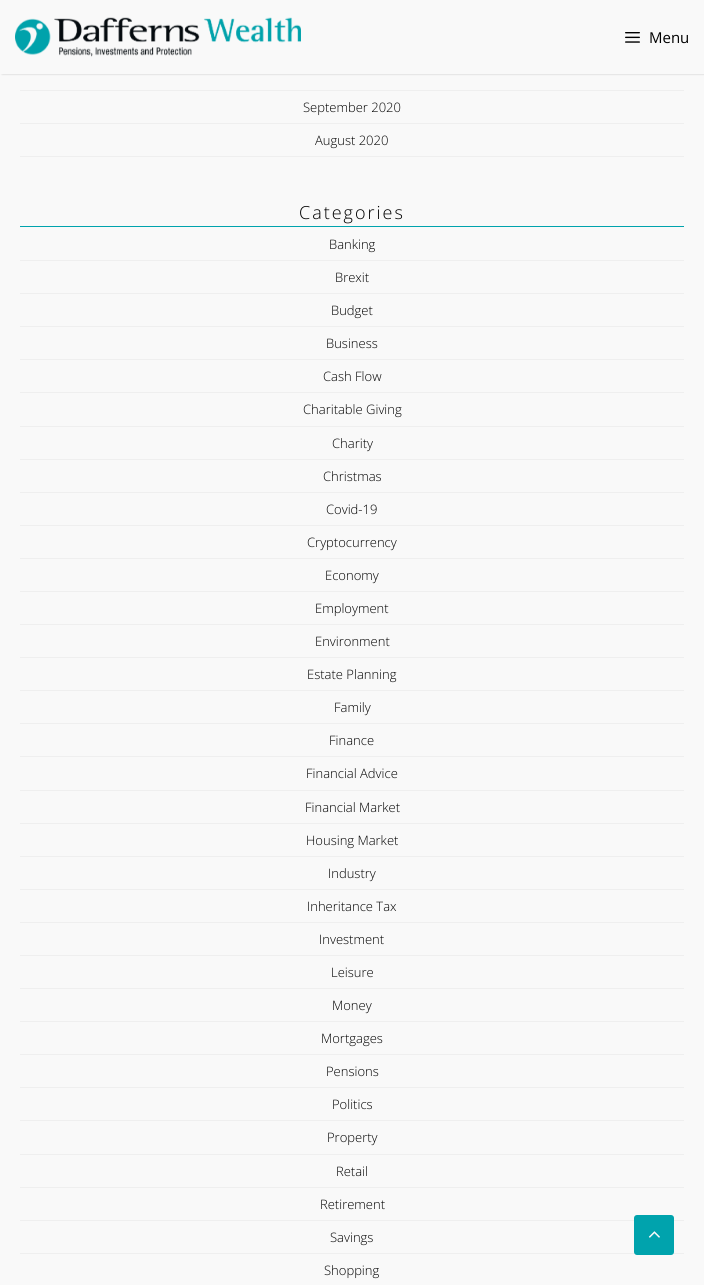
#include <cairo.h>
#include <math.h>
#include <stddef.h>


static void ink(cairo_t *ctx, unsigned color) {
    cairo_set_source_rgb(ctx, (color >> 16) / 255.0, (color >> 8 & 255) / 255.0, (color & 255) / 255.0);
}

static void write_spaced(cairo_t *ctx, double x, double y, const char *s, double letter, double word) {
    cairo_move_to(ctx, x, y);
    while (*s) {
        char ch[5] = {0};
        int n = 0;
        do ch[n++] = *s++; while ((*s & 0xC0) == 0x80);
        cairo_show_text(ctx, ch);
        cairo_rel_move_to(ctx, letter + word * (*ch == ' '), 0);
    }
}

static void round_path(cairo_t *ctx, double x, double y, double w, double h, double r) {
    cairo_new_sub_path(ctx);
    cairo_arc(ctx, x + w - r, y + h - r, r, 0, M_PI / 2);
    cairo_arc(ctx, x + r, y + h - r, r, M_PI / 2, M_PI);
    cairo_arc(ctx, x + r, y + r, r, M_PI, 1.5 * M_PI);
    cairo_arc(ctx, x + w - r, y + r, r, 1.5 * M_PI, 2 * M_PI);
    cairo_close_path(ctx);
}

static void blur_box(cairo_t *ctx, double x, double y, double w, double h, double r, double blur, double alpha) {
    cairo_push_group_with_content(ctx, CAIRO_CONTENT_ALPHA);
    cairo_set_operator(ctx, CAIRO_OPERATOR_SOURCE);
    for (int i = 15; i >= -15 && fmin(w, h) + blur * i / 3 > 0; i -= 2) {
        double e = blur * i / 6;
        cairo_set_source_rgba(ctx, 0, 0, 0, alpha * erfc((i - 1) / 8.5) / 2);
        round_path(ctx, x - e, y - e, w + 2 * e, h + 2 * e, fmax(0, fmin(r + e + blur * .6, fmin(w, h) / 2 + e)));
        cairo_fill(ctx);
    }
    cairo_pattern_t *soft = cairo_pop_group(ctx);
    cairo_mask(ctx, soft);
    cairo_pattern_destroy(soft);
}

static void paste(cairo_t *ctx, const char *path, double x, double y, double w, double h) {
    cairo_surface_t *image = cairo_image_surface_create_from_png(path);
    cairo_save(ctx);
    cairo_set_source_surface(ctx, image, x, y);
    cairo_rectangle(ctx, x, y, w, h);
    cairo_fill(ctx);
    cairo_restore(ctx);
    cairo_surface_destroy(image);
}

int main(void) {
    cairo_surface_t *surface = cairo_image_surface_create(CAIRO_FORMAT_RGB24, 704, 1285);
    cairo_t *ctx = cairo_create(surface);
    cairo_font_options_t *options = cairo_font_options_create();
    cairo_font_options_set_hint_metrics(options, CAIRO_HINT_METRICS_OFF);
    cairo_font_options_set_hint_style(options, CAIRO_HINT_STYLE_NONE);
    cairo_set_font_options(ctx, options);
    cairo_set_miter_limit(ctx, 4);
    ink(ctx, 0xF9F9F9);
    cairo_paint(ctx);
    ink(ctx, 0x000000);
    blur_box(ctx, 2, 4, 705, 70, 0, 1, 0.2);
    ink(ctx, 0xF9F9F9);
    cairo_rectangle(ctx, 0, 2, 704, 72);
    cairo_fill(ctx);
    paste(ctx, "media/1.png", 15, 17, 286, 40);
    paste(ctx, "media/2.png", 625, 32, 15, 11);
    cairo_select_font_face(ctx, "Open Sans", CAIRO_FONT_SLANT_NORMAL, CAIRO_FONT_WEIGHT_NORMAL);
    cairo_set_font_size(ctx, 15);
    ink(ctx, 0x000000);
    cairo_move_to(ctx, 649, 43);
    cairo_show_text(ctx, "Menu");
    ink(ctx, 0xEFEFEF);
    cairo_rectangle(ctx, 20, 90, 664, 1);
    cairo_fill(ctx);
    cairo_rectangle(ctx, 20, 123, 664, 1);
    cairo_fill(ctx);
    cairo_select_font_face(ctx, "Open Sans Light", CAIRO_FONT_SLANT_NORMAL, CAIRO_FONT_WEIGHT_NORMAL);
    cairo_set_font_size(ctx, 13);
    ink(ctx, 0x000000);
    cairo_move_to(ctx, 303, 112);
    cairo_show_text(ctx, "September 2020");
    ink(ctx, 0xEFEFEF);
    cairo_rectangle(ctx, 20, 156, 664, 1);
    cairo_fill(ctx);
    ink(ctx, 0x000000);
    cairo_move_to(ctx, 315, 145);
    cairo_show_text(ctx, "August 2020");
    ink(ctx, 0x00A3AD);
    cairo_rectangle(ctx, 20, 226, 664, 1);
    cairo_fill(ctx);
    cairo_set_font_size(ctx, 18);
    ink(ctx, 0x000000);
    write_spaced(ctx, 299, 219, "Categories", 2, 0);
    ink(ctx, 0xEFEFEF);
    cairo_rectangle(ctx, 20, 260, 664, 1);
    cairo_fill(ctx);
    cairo_set_font_size(ctx, 13);
    ink(ctx, 0x000000);
    cairo_move_to(ctx, 329, 249);
    cairo_show_text(ctx, "Banking");
    ink(ctx, 0xEFEFEF);
    cairo_rectangle(ctx, 20, 293, 664, 1);
    cairo_fill(ctx);
    ink(ctx, 0x000000);
    cairo_move_to(ctx, 335, 282);
    cairo_show_text(ctx, "Brexit");
    ink(ctx, 0xEFEFEF);
    cairo_rectangle(ctx, 20, 326, 664, 1);
    cairo_fill(ctx);
    ink(ctx, 0x000000);
    cairo_move_to(ctx, 331, 315);
    cairo_show_text(ctx, "Budget");
    ink(ctx, 0xEFEFEF);
    cairo_rectangle(ctx, 20, 359, 664, 1);
    cairo_fill(ctx);
    ink(ctx, 0x000000);
    cairo_move_to(ctx, 326, 348);
    cairo_show_text(ctx, "Business");
    ink(ctx, 0xEFEFEF);
    cairo_rectangle(ctx, 20, 392, 664, 1);
    cairo_fill(ctx);
    ink(ctx, 0x000000);
    cairo_move_to(ctx, 323, 381);
    cairo_show_text(ctx, "Cash Flow");
    ink(ctx, 0xEFEFEF);
    cairo_rectangle(ctx, 20, 426, 664, 1);
    cairo_fill(ctx);
    ink(ctx, 0x000000);
    cairo_move_to(ctx, 303, 414);
    cairo_show_text(ctx, "Charitable Giving");
    ink(ctx, 0xEFEFEF);
    cairo_rectangle(ctx, 20, 459, 664, 1);
    cairo_fill(ctx);
    ink(ctx, 0x000000);
    cairo_move_to(ctx, 332, 448);
    cairo_show_text(ctx, "Charity");
    ink(ctx, 0xEFEFEF);
    cairo_rectangle(ctx, 20, 492, 664, 1);
    cairo_fill(ctx);
    ink(ctx, 0x000000);
    cairo_move_to(ctx, 323, 481);
    cairo_show_text(ctx, "Christmas");
    ink(ctx, 0xEFEFEF);
    cairo_rectangle(ctx, 20, 525, 664, 1);
    cairo_fill(ctx);
    ink(ctx, 0x000000);
    cairo_move_to(ctx, 326, 514);
    cairo_show_text(ctx, "Covid-19");
    ink(ctx, 0xEFEFEF);
    cairo_rectangle(ctx, 20, 558, 664, 1);
    cairo_fill(ctx);
    ink(ctx, 0x000000);
    cairo_move_to(ctx, 307, 547);
    cairo_show_text(ctx, "Cryptocurrency");
    ink(ctx, 0xEFEFEF);
    cairo_rectangle(ctx, 20, 591, 664, 1);
    cairo_fill(ctx);
    ink(ctx, 0x000000);
    cairo_move_to(ctx, 325, 580);
    cairo_show_text(ctx, "Economy");
    ink(ctx, 0xEFEFEF);
    cairo_rectangle(ctx, 20, 624, 664, 1);
    cairo_fill(ctx);
    ink(ctx, 0x000000);
    cairo_move_to(ctx, 315, 613);
    cairo_show_text(ctx, "Employment");
    ink(ctx, 0xEFEFEF);
    cairo_rectangle(ctx, 20, 657, 664, 1);
    cairo_fill(ctx);
    ink(ctx, 0x000000);
    cairo_move_to(ctx, 315, 646);
    cairo_show_text(ctx, "Environment");
    ink(ctx, 0xEFEFEF);
    cairo_rectangle(ctx, 20, 690, 664, 1);
    cairo_fill(ctx);
    ink(ctx, 0x000000);
    cairo_move_to(ctx, 307, 679);
    cairo_show_text(ctx, "Estate Planning");
    ink(ctx, 0xEFEFEF);
    cairo_rectangle(ctx, 20, 723, 664, 1);
    cairo_fill(ctx);
    ink(ctx, 0x000000);
    cairo_move_to(ctx, 334, 712);
    cairo_show_text(ctx, "Family");
    ink(ctx, 0xEFEFEF);
    cairo_rectangle(ctx, 20, 756, 664, 1);
    cairo_fill(ctx);
    ink(ctx, 0x000000);
    cairo_move_to(ctx, 329, 745);
    cairo_show_text(ctx, "Finance");
    ink(ctx, 0xEFEFEF);
    cairo_rectangle(ctx, 20, 790, 664, 1);
    cairo_fill(ctx);
    ink(ctx, 0x000000);
    cairo_move_to(ctx, 306, 778);
    cairo_show_text(ctx, "Financial Advice");
    ink(ctx, 0xEFEFEF);
    cairo_rectangle(ctx, 20, 823, 664, 1);
    cairo_fill(ctx);
    ink(ctx, 0x000000);
    cairo_move_to(ctx, 305, 812);
    cairo_show_text(ctx, "Financial Market");
    ink(ctx, 0xEFEFEF);
    cairo_rectangle(ctx, 20, 856, 664, 1);
    cairo_fill(ctx);
    ink(ctx, 0x000000);
    cairo_move_to(ctx, 306, 845);
    cairo_show_text(ctx, "Housing Market");
    ink(ctx, 0xEFEFEF);
    cairo_rectangle(ctx, 20, 889, 664, 1);
    cairo_fill(ctx);
    ink(ctx, 0x000000);
    cairo_move_to(ctx, 328, 878);
    cairo_show_text(ctx, "Industry");
    ink(ctx, 0xEFEFEF);
    cairo_rectangle(ctx, 20, 922, 664, 1);
    cairo_fill(ctx);
    ink(ctx, 0x000000);
    cairo_move_to(ctx, 307, 911);
    cairo_show_text(ctx, "Inheritance Tax");
    ink(ctx, 0xEFEFEF);
    cairo_rectangle(ctx, 20, 955, 664, 1);
    cairo_fill(ctx);
    ink(ctx, 0x000000);
    cairo_move_to(ctx, 319, 944);
    cairo_show_text(ctx, "Investment");
    ink(ctx, 0xEFEFEF);
    cairo_rectangle(ctx, 20, 988, 664, 1);
    cairo_fill(ctx);
    ink(ctx, 0x000000);
    cairo_move_to(ctx, 331, 977);
    cairo_show_text(ctx, "Leisure");
    ink(ctx, 0xEFEFEF);
    cairo_rectangle(ctx, 20, 1021, 664, 1);
    cairo_fill(ctx);
    ink(ctx, 0x000000);
    cairo_move_to(ctx, 332, 1010);
    cairo_show_text(ctx, "Money");
    ink(ctx, 0xEFEFEF);
    cairo_rectangle(ctx, 20, 1054, 664, 1);
    cairo_fill(ctx);
    ink(ctx, 0x000000);
    cairo_move_to(ctx, 321, 1043);
    cairo_show_text(ctx, "Mortgages");
    ink(ctx, 0xEFEFEF);
    cairo_rectangle(ctx, 20, 1087, 664, 1);
    cairo_fill(ctx);
    ink(ctx, 0x000000);
    cairo_move_to(ctx, 326, 1076);
    cairo_show_text(ctx, "Pensions");
    ink(ctx, 0xEFEFEF);
    cairo_rectangle(ctx, 20, 1120, 664, 1);
    cairo_fill(ctx);
    ink(ctx, 0x000000);
    cairo_move_to(ctx, 332, 1109);
    cairo_show_text(ctx, "Politics");
    ink(ctx, 0xEFEFEF);
    cairo_rectangle(ctx, 20, 1154, 664, 1);
    cairo_fill(ctx);
    ink(ctx, 0x000000);
    cairo_move_to(ctx, 327, 1142);
    cairo_show_text(ctx, "Property");
    ink(ctx, 0xEFEFEF);
    cairo_rectangle(ctx, 20, 1187, 664, 1);
    cairo_fill(ctx);
    ink(ctx, 0x000000);
    cairo_move_to(ctx, 336, 1176);
    cairo_show_text(ctx, "Retail");
    ink(ctx, 0xEFEFEF);
    cairo_rectangle(ctx, 20, 1220, 664, 1);
    cairo_fill(ctx);
    ink(ctx, 0x000000);
    cairo_move_to(ctx, 320, 1209);
    cairo_show_text(ctx, "Retirement");
    ink(ctx, 0xEFEFEF);
    cairo_rectangle(ctx, 20, 1253, 664, 1);
    cairo_fill(ctx);
    ink(ctx, 0x000000);
    cairo_move_to(ctx, 330, 1242);
    cairo_show_text(ctx, "Savings");
    cairo_move_to(ctx, 324, 1275);
    cairo_show_text(ctx, "Shopping");
    ink(ctx, 0x00A3AD);
    round_path(ctx, 634, 1215, 40, 40, 3);
    cairo_fill(ctx);
    paste(ctx, "media/3.png", 648, 1231, 12, 7);
    cairo_surface_write_to_png(surface, "image.png");
    cairo_font_options_destroy(options);
    cairo_destroy(ctx);
    cairo_surface_destroy(surface);
    return 0;
}
